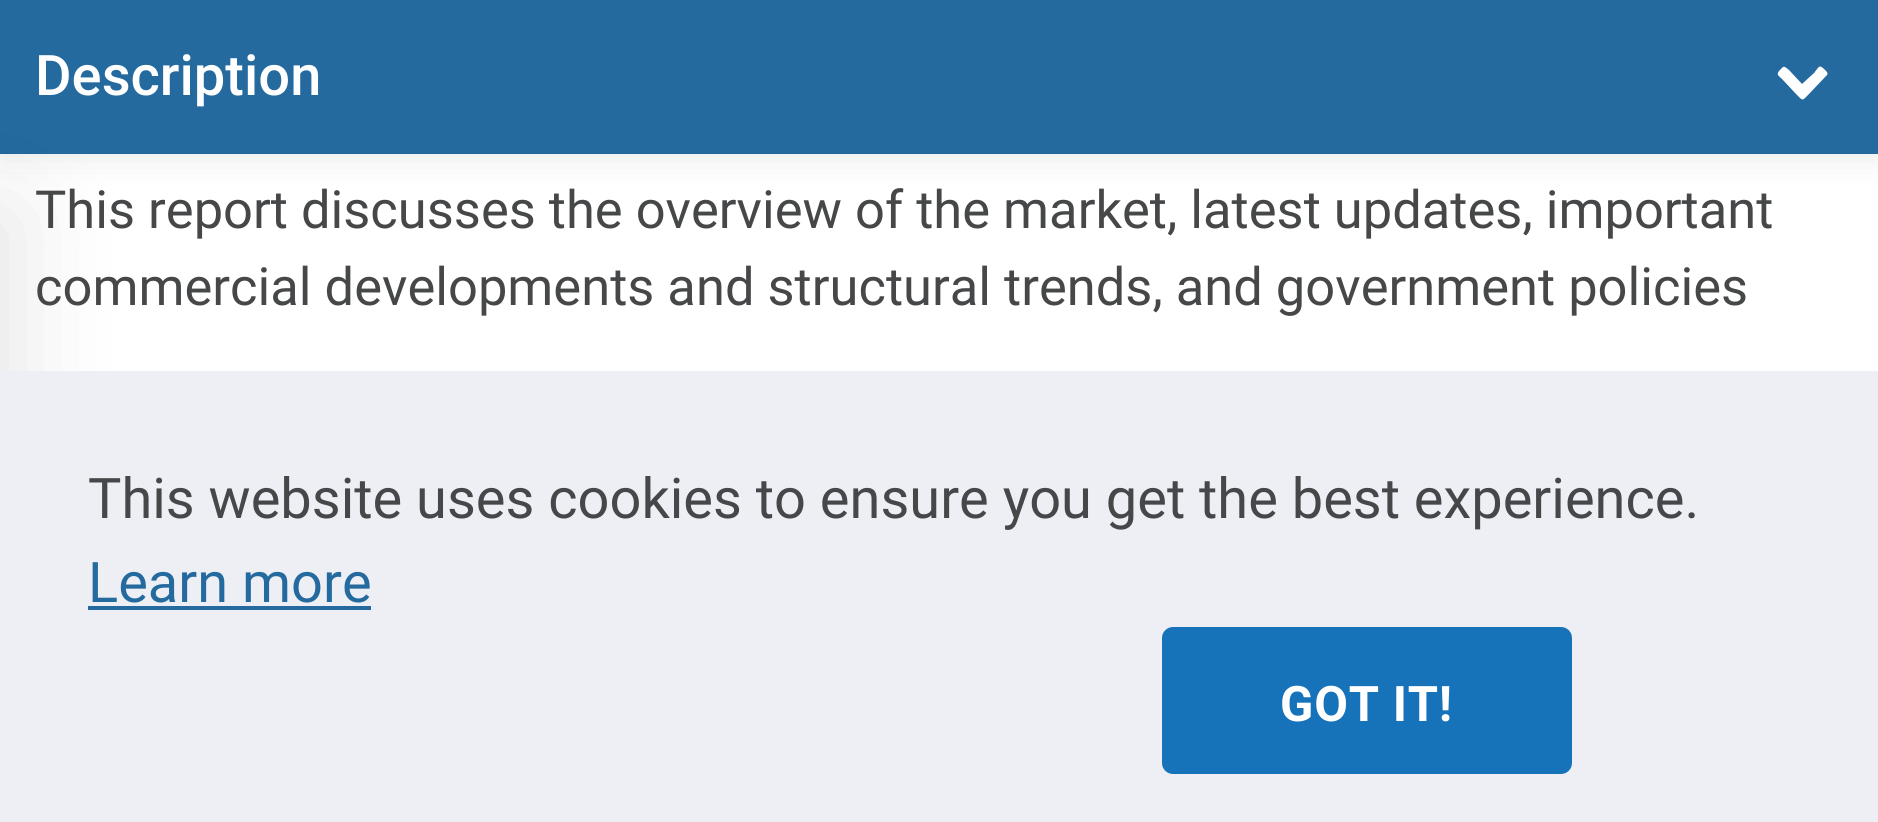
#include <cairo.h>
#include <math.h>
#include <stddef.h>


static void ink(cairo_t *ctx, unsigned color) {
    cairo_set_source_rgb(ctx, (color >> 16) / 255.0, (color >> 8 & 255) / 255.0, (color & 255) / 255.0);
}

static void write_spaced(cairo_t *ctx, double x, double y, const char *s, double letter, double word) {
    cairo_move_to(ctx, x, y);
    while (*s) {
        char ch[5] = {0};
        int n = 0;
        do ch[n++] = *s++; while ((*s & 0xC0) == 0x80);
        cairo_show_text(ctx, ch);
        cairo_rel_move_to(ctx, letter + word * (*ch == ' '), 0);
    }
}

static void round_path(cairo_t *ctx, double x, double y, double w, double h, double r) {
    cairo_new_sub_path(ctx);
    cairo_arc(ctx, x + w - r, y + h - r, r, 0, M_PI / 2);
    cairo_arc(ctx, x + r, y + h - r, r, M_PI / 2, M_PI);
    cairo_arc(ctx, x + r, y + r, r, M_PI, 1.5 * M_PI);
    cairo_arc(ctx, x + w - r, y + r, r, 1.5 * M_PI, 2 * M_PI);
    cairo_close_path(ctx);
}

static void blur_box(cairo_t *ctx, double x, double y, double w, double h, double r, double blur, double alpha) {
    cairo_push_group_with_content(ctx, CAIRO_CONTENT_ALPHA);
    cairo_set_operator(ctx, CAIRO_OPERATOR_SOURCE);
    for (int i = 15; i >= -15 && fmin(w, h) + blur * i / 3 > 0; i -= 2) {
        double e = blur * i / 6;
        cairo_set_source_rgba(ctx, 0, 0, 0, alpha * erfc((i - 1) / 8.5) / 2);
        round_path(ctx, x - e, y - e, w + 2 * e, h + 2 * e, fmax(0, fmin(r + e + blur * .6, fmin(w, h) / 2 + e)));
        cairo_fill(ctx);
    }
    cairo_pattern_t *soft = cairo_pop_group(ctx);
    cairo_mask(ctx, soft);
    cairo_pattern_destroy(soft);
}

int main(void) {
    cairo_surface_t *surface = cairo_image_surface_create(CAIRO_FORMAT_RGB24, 1878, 822);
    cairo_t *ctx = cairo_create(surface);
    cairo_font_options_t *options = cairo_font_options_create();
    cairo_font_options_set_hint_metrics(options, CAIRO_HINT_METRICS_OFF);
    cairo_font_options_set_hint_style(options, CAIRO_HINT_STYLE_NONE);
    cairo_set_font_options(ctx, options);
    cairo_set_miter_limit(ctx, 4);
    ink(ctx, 0xFFFFFF);
    cairo_paint(ctx);
    ink(ctx, 0x000000);
    blur_box(ctx, 0, 0, 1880, 154, 0, 17.5, 0.1);
    ink(ctx, 0x246A9F);
    cairo_rectangle(ctx, 0, 0, 1878, 154);
    cairo_fill(ctx);
    ink(ctx, 0x000000);
    blur_box(ctx, -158, 210, 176, 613, 0, 52.5, 0.1);
    cairo_select_font_face(ctx, "Roboto Medium", CAIRO_FONT_SLANT_NORMAL, CAIRO_FONT_WEIGHT_NORMAL);
    cairo_set_font_size(ctx, 56);
    ink(ctx, 0xFFFFFF);
    cairo_move_to(ctx, 35, 95);
    cairo_show_text(ctx, "Description");
    cairo_new_path(ctx);
    cairo_move_to(ctx, 1827, 75);
    cairo_line_to(ctx, 1808, 95);
    cairo_curve_to(ctx, 1802, 101, 1803, 101, 1797, 95);
    cairo_line_to(ctx, 1782, 79);
    cairo_curve_to(ctx, 1779, 76, 1776, 75, 1779, 71);
    cairo_curve_to(ctx, 1784, 66, 1783, 65, 1789, 70);
    cairo_line_to(ctx, 1802, 84);
    cairo_line_to(ctx, 1814, 73);
    cairo_curve_to(ctx, 1819, 67, 1819, 64, 1824, 69);
    cairo_curve_to(ctx, 1825, 70, 1829, 73, 1827, 75);
    cairo_close_path(ctx);
    cairo_fill(ctx);
    cairo_select_font_face(ctx, "Roboto", CAIRO_FONT_SLANT_NORMAL, CAIRO_FONT_WEIGHT_NORMAL);
    cairo_set_font_size(ctx, 52.5);
    ink(ctx, 0x454748);
    cairo_move_to(ctx, 35, 228);
    cairo_show_text(ctx, "This report discusses the overview of the market, latest updates, important");
    cairo_move_to(ctx, 35, 305);
    cairo_show_text(ctx, "commercial developments and structural trends, and government policies");
    ink(ctx, 0xEDEFF5);
    cairo_rectangle(ctx, 0, 371, 1878, 451);
    cairo_fill(ctx);
    cairo_set_font_size(ctx, 56);
    ink(ctx, 0x454748);
    cairo_move_to(ctx, 88, 518);
    cairo_show_text(ctx, "This website uses cookies to ensure you get the best experience.");
    ink(ctx, 0x246A9F);
    cairo_move_to(ctx, 88, 602);
    cairo_show_text(ctx, "Learn more");
    cairo_rectangle(ctx, 88, 606, 283, 4);
    cairo_fill(ctx);
    ink(ctx, 0x1673B9);
    round_path(ctx, 1162, 627, 410, 147, 11);
    cairo_fill(ctx);
    cairo_select_font_face(ctx, "Roboto", CAIRO_FONT_SLANT_NORMAL, CAIRO_FONT_WEIGHT_BOLD);
    cairo_set_font_size(ctx, 49);
    ink(ctx, 0xFFFFFF);
    write_spaced(ctx, 1280, 721, "GOT IT!", 0.75, 0);
    cairo_surface_write_to_png(surface, "image.png");
    cairo_font_options_destroy(options);
    cairo_destroy(ctx);
    cairo_surface_destroy(surface);
    return 0;
}
